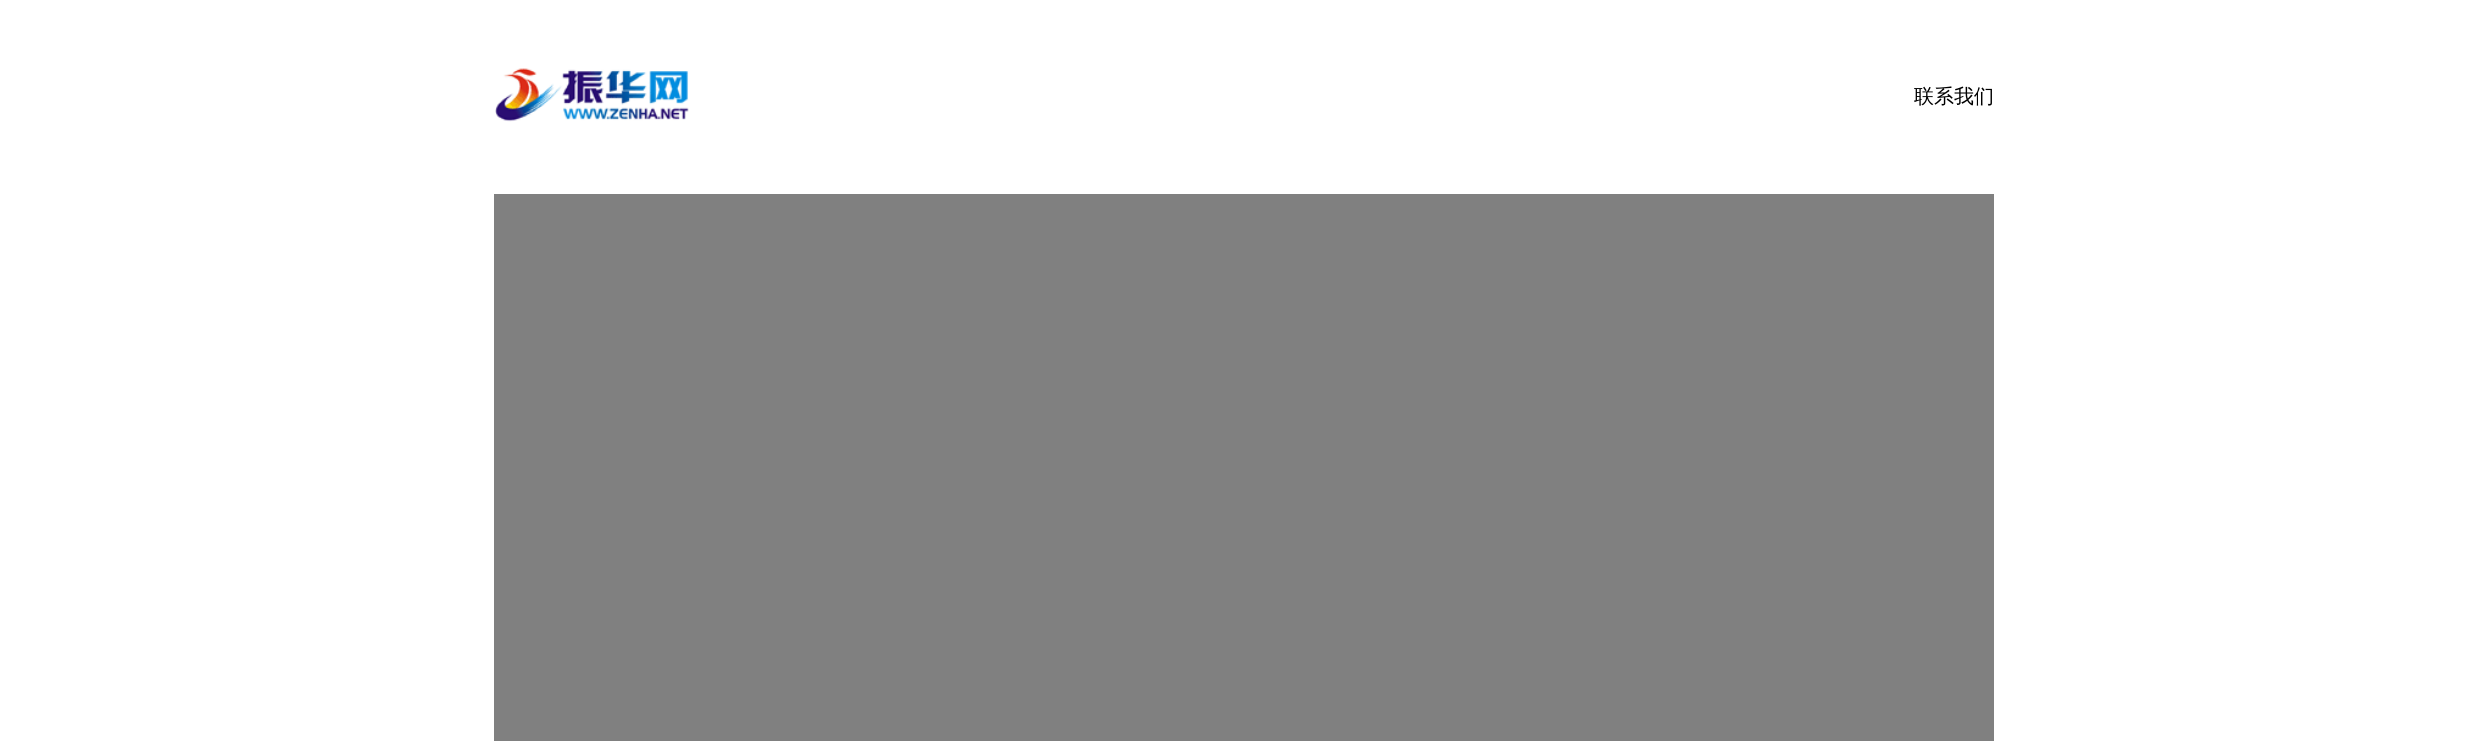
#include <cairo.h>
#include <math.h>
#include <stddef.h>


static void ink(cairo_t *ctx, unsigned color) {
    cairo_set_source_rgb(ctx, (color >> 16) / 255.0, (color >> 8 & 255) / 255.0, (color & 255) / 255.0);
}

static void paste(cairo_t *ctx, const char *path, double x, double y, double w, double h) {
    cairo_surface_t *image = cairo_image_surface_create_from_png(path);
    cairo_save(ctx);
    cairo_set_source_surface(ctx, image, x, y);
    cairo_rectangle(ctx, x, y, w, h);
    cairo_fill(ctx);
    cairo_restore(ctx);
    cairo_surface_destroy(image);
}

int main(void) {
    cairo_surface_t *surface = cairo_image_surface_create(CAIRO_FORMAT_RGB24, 2487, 741);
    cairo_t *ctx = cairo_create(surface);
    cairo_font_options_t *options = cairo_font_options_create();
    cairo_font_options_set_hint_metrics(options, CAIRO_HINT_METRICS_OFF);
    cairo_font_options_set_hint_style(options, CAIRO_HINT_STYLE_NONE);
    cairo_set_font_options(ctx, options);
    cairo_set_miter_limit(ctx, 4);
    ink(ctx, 0xFFFFFF);
    cairo_paint(ctx);
    paste(ctx, "media/1.png", 495, 68, 194, 54);
    cairo_select_font_face(ctx, "WenQuanYi Zen Hei Medium", CAIRO_FONT_SLANT_NORMAL, CAIRO_FONT_WEIGHT_NORMAL);
    cairo_set_font_size(ctx, 20);
    ink(ctx, 0x000000);
    cairo_move_to(ctx, 1914, 103);
    cairo_show_text(ctx, "联系我们");
    ink(ctx, 0x808080);
    cairo_rectangle(ctx, 494, 194, 1500, 547);
    cairo_fill(ctx);
    cairo_surface_write_to_png(surface, "image.png");
    cairo_font_options_destroy(options);
    cairo_destroy(ctx);
    cairo_surface_destroy(surface);
    return 0;
}
